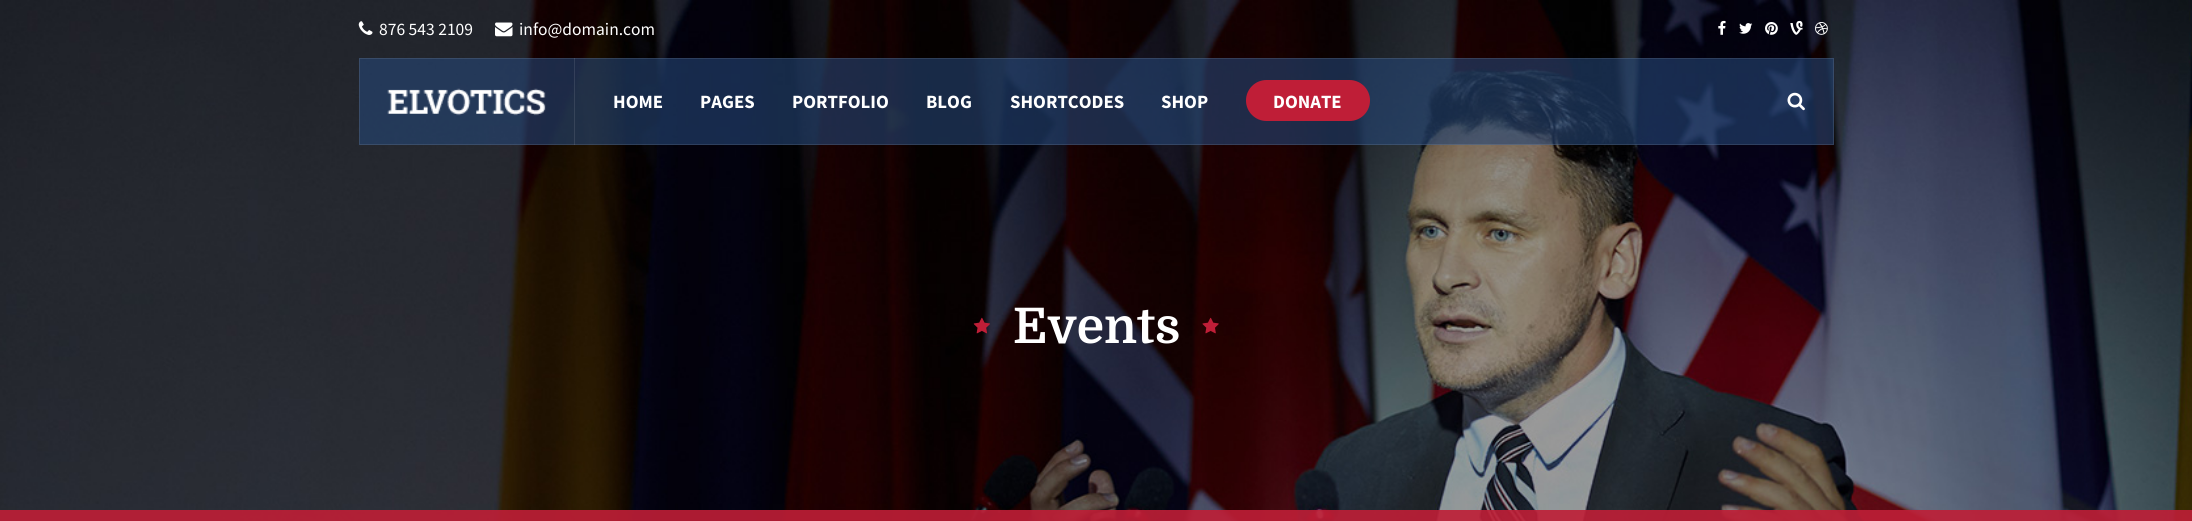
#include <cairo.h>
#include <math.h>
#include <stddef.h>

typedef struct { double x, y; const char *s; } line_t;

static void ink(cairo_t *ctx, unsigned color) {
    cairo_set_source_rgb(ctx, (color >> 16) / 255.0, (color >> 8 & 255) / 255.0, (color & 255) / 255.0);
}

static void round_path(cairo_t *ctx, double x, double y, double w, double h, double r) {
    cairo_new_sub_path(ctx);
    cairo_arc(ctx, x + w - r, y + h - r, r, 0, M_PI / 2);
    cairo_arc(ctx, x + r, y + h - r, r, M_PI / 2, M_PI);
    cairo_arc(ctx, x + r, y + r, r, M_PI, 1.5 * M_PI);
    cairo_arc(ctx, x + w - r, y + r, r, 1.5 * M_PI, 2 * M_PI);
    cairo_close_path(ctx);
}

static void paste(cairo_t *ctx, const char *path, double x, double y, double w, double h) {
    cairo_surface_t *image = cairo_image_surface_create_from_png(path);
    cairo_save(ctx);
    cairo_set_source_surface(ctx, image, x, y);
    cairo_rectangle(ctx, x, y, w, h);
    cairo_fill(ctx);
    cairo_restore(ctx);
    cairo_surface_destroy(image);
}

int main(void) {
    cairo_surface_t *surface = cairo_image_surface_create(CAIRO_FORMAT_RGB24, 2192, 521);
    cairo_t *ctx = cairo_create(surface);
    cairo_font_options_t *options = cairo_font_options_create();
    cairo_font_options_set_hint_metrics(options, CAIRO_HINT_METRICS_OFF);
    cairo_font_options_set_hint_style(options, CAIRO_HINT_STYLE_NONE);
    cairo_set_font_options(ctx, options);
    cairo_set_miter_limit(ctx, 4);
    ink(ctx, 0xFFFFFF);
    cairo_paint(ctx);
    paste(ctx, "media/1.png", 0, 0, 2192, 521);
    paste(ctx, "media/2.png", 358, 21, 15, 14);
    cairo_select_font_face(ctx, "Source Sans Pro", CAIRO_FONT_SLANT_NORMAL, CAIRO_FONT_WEIGHT_NORMAL);
    cairo_set_font_size(ctx, 17.5);
    ink(ctx, 0xFFFFFF);
    cairo_move_to(ctx, 379, 35);
    cairo_show_text(ctx, "876 543 2109");
    paste(ctx, "media/3.png", 495, 22, 18, 15);
    cairo_move_to(ctx, 519, 35);
    cairo_show_text(ctx, "info@domain.com");
    paste(ctx, "media/4.png", 1718, 20, 8, 15);
    paste(ctx, "media/5.png", 1739, 23, 14, 11);
    paste(ctx, "media/6.png", 1765, 22, 13, 13);
    paste(ctx, "media/7.png", 1790, 20, 13, 15);
    paste(ctx, "media/8.png", 1815, 22, 13, 13);
    cairo_set_source_rgba(ctx, 0.149, 0.275, 0.463, 0.6);
    cairo_rectangle(ctx, 359, 58, 1475, 87);
    cairo_fill(ctx);
    cairo_rectangle(ctx, 359.5, 58.5, 1474, 86);
    cairo_set_source_rgba(ctx, 1, 1, 1, 0.1);
    cairo_set_line_width(ctx, 1);
    cairo_stroke(ctx);
    cairo_rectangle(ctx, 574, 58, 1, 87);
    cairo_fill(ctx);
    paste(ctx, "media/9.png", 387, 88, 159, 28);
    cairo_select_font_face(ctx, "Source Sans Pro", CAIRO_FONT_SLANT_NORMAL, CAIRO_FONT_WEIGHT_BOLD);
    cairo_set_font_size(ctx, 18.75);
    ink(ctx, 0xFFFFFF);
    {
        static const line_t items[] = {
            {613, 108, "HOME"},
            {700, 108, "PAGES"},
            {792, 108, "PORTFOLIO"},
            {926, 108, "BLOG"},
            {1010, 108, "SHORTCODES"},
            {1161, 108, "SHOP"},
        };
        for (size_t i = 0; i < sizeof items / sizeof *items; i++) {
            cairo_move_to(ctx, items[i].x, items[i].y);
            cairo_show_text(ctx, items[i].s);
        }
    }
    ink(ctx, 0xBF1E37);
    round_path(ctx, 1246, 80, 124, 41, 20.5);
    cairo_fill(ctx);
    ink(ctx, 0xFFFFFF);
    cairo_move_to(ctx, 1273, 108);
    cairo_show_text(ctx, "DONATE");
    paste(ctx, "media/10.png", 1787, 92, 18, 19);
    paste(ctx, "media/11.png", 973, 317, 17, 17);
    cairo_select_font_face(ctx, "Domine", CAIRO_FONT_SLANT_NORMAL, CAIRO_FONT_WEIGHT_BOLD);
    cairo_set_font_size(ctx, 49);
    cairo_move_to(ctx, 1013, 343);
    cairo_show_text(ctx, "Events");
    paste(ctx, "media/12.png", 1202, 317, 17, 17);
    cairo_set_source_rgba(ctx, 0.749, 0.118, 0.216, 0.9);
    cairo_rectangle(ctx, 0, 510, 2192, 11);
    cairo_fill(ctx);
    cairo_surface_write_to_png(surface, "image.png");
    cairo_font_options_destroy(options);
    cairo_destroy(ctx);
    cairo_surface_destroy(surface);
    return 0;
}
